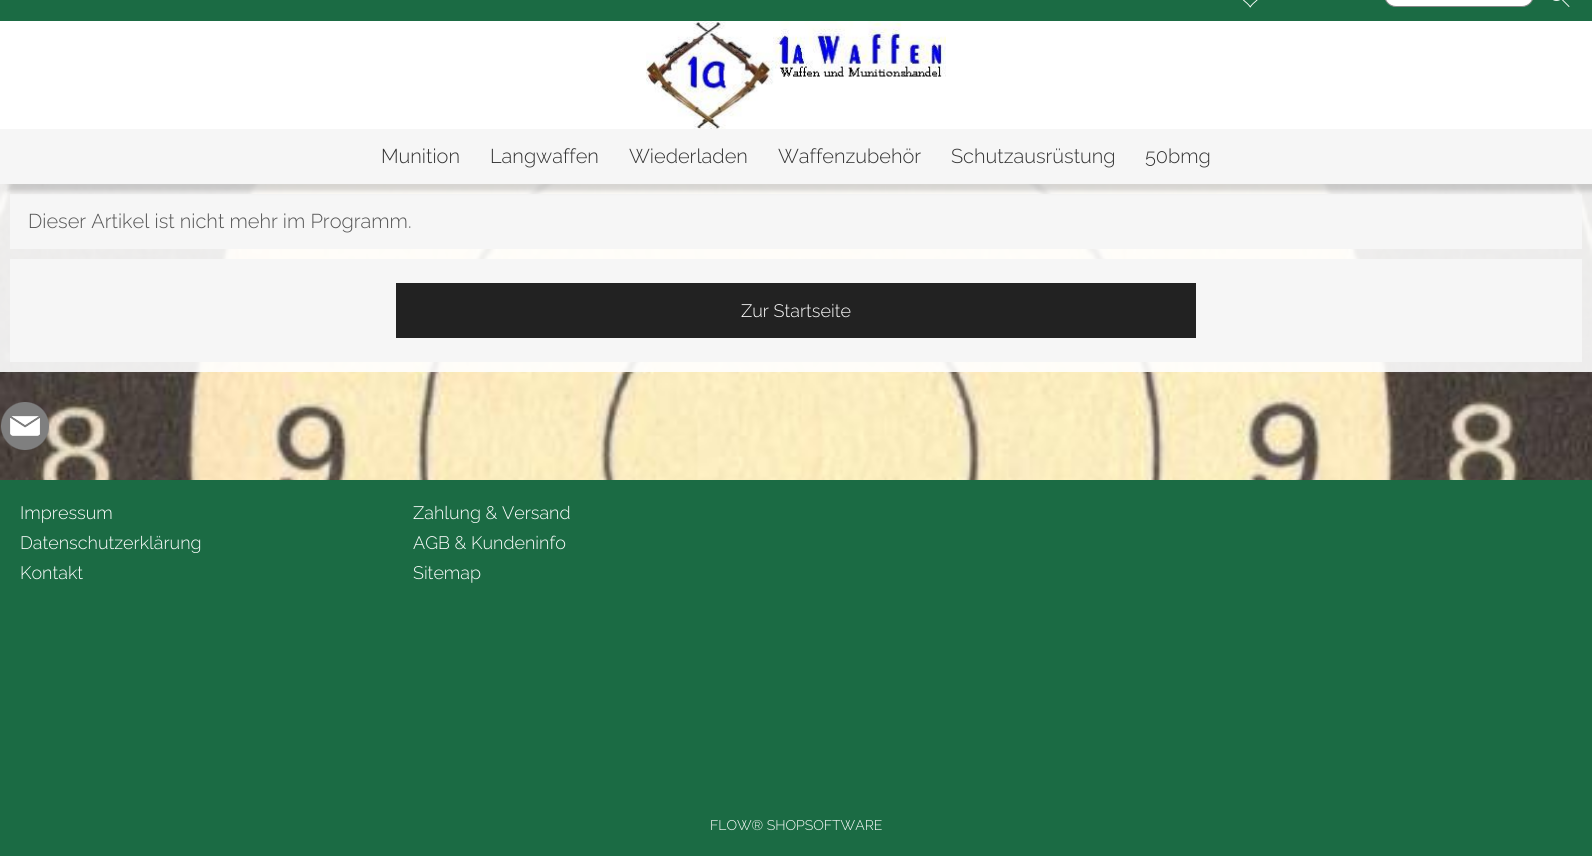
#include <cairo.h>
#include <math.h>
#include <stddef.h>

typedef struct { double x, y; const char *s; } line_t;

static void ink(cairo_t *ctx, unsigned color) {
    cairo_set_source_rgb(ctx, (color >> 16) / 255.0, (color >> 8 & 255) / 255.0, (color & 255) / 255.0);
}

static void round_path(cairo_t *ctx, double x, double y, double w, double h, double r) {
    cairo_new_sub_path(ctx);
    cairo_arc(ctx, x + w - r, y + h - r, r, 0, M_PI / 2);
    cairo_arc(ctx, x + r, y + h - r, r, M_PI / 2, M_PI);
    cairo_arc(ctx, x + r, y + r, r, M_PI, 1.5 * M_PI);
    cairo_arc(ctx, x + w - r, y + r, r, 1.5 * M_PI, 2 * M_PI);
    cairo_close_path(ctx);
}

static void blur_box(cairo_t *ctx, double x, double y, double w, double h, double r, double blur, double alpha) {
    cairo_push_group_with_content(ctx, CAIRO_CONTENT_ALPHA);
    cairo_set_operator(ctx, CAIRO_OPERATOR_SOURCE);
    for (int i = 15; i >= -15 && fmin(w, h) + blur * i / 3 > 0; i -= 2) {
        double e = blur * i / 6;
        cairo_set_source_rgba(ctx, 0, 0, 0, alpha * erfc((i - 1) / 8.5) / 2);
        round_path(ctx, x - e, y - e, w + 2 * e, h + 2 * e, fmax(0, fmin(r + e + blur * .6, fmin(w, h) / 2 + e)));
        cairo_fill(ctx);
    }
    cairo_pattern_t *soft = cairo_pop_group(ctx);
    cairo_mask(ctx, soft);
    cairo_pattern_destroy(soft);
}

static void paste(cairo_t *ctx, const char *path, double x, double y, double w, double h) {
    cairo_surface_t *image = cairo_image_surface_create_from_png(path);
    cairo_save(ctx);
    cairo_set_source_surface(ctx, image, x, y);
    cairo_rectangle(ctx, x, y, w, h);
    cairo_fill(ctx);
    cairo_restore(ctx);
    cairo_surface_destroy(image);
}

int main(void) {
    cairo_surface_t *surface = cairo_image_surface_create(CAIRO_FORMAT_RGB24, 1592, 856);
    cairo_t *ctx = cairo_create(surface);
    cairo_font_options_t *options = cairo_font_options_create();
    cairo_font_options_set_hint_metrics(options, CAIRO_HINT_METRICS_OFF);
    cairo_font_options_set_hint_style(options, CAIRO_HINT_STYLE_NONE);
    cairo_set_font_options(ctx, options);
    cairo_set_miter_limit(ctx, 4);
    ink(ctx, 0xFFFFFF);
    cairo_paint(ctx);
    paste(ctx, "media/1.png", 0, 184, 1592, 296);
    ink(ctx, 0x1B6B44);
    cairo_rectangle(ctx, 0, 0, 1592, 21);
    cairo_fill(ctx);
    paste(ctx, "media/2.png", 1242, 0, 16, 8);
    ink(ctx, 0xFFFFFF);
    round_path(ctx, 1384.5, -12.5, 149, 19, 11.5);
    cairo_fill_preserve(ctx);
    ink(ctx, 0x888888);
    cairo_set_line_width(ctx, 1);
    cairo_stroke(ctx);
    cairo_arc(ctx, 1556.5, -6.5, 7, 0, 2 * M_PI);
    ink(ctx, 0xFFFFFF);
    cairo_set_line_width(ctx, 0.9);
    cairo_stroke(ctx);
    cairo_new_path(ctx);
    cairo_move_to(ctx, 1561, -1.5);
    cairo_line_to(ctx, 1569, 6.5);
    cairo_set_line_cap(ctx, CAIRO_LINE_CAP_ROUND);
    cairo_stroke(ctx);
    paste(ctx, "media/3.png", 646, 21, 300, 108);
    cairo_set_source_rgba(ctx, 1, 1, 1, 0.9);
    cairo_rectangle(ctx, 0, 184, 1592, 188);
    cairo_fill(ctx);
    ink(ctx, 0xF6F6F6);
    cairo_rectangle(ctx, 10, 194, 1572, 55);
    cairo_fill(ctx);
    ink(ctx, 0x323232);
    blur_box(ctx, 7, 136, 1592, 55, 0, 2.5, 0.2);
    ink(ctx, 0xF6F6F6);
    cairo_rectangle(ctx, 0, 129, 1592, 55);
    cairo_fill(ctx);
    cairo_select_font_face(ctx, "Raleway Light", CAIRO_FONT_SLANT_NORMAL, CAIRO_FONT_WEIGHT_NORMAL);
    cairo_set_font_size(ctx, 20);
    ink(ctx, 0x333333);
    {
        static const line_t items[] = {
            {381, 163, "Munition"},
            {490, 163, "Langwaffen"},
            {629, 163, "Wiederladen"},
            {778, 163, "Waffenzubehör"},
            {951, 163, "Schutzausrüstung"},
            {1145, 163, "50bmg"},
        };
        for (size_t i = 0; i < sizeof items / sizeof *items; i++) {
            cairo_move_to(ctx, items[i].x, items[i].y);
            cairo_show_text(ctx, items[i].s);
        }
    }
    ink(ctx, 0x555555);
    cairo_move_to(ctx, 28, 228);
    cairo_show_text(ctx, "Dieser Artikel ist nicht mehr im Programm.");
    ink(ctx, 0xF6F6F6);
    cairo_rectangle(ctx, 10, 259, 1572, 103);
    cairo_fill(ctx);
    ink(ctx, 0x222222);
    cairo_rectangle(ctx, 396, 283, 800, 55);
    cairo_fill(ctx);
    cairo_set_font_size(ctx, 18);
    ink(ctx, 0xFFFFFF);
    cairo_move_to(ctx, 741, 317);
    cairo_show_text(ctx, "Zur Startseite");
    paste(ctx, "media/4.png", 1, 402, 48, 48);
    ink(ctx, 0x1B6B44);
    cairo_rectangle(ctx, 0, 480, 1592, 376);
    cairo_fill(ctx);
    ink(ctx, 0xFFFFFF);
    {
        static const line_t items[] = {
            {20, 519, "Impressum"},
            {20, 549, "Datenschutzerklärung"},
            {20, 579, "Kontakt"},
            {413, 519, "Zahlung & Versand"},
            {413, 549, "AGB & Kundeninfo"},
            {413, 579, "Sitemap"},
        };
        for (size_t i = 0; i < sizeof items / sizeof *items; i++) {
            cairo_move_to(ctx, items[i].x, items[i].y);
            cairo_show_text(ctx, items[i].s);
        }
    }
    cairo_set_font_size(ctx, 14);
    cairo_move_to(ctx, 710, 830);
    cairo_show_text(ctx, "FLOW® SHOPSOFTWARE");
    cairo_surface_write_to_png(surface, "image.png");
    cairo_font_options_destroy(options);
    cairo_destroy(ctx);
    cairo_surface_destroy(surface);
    return 0;
}
